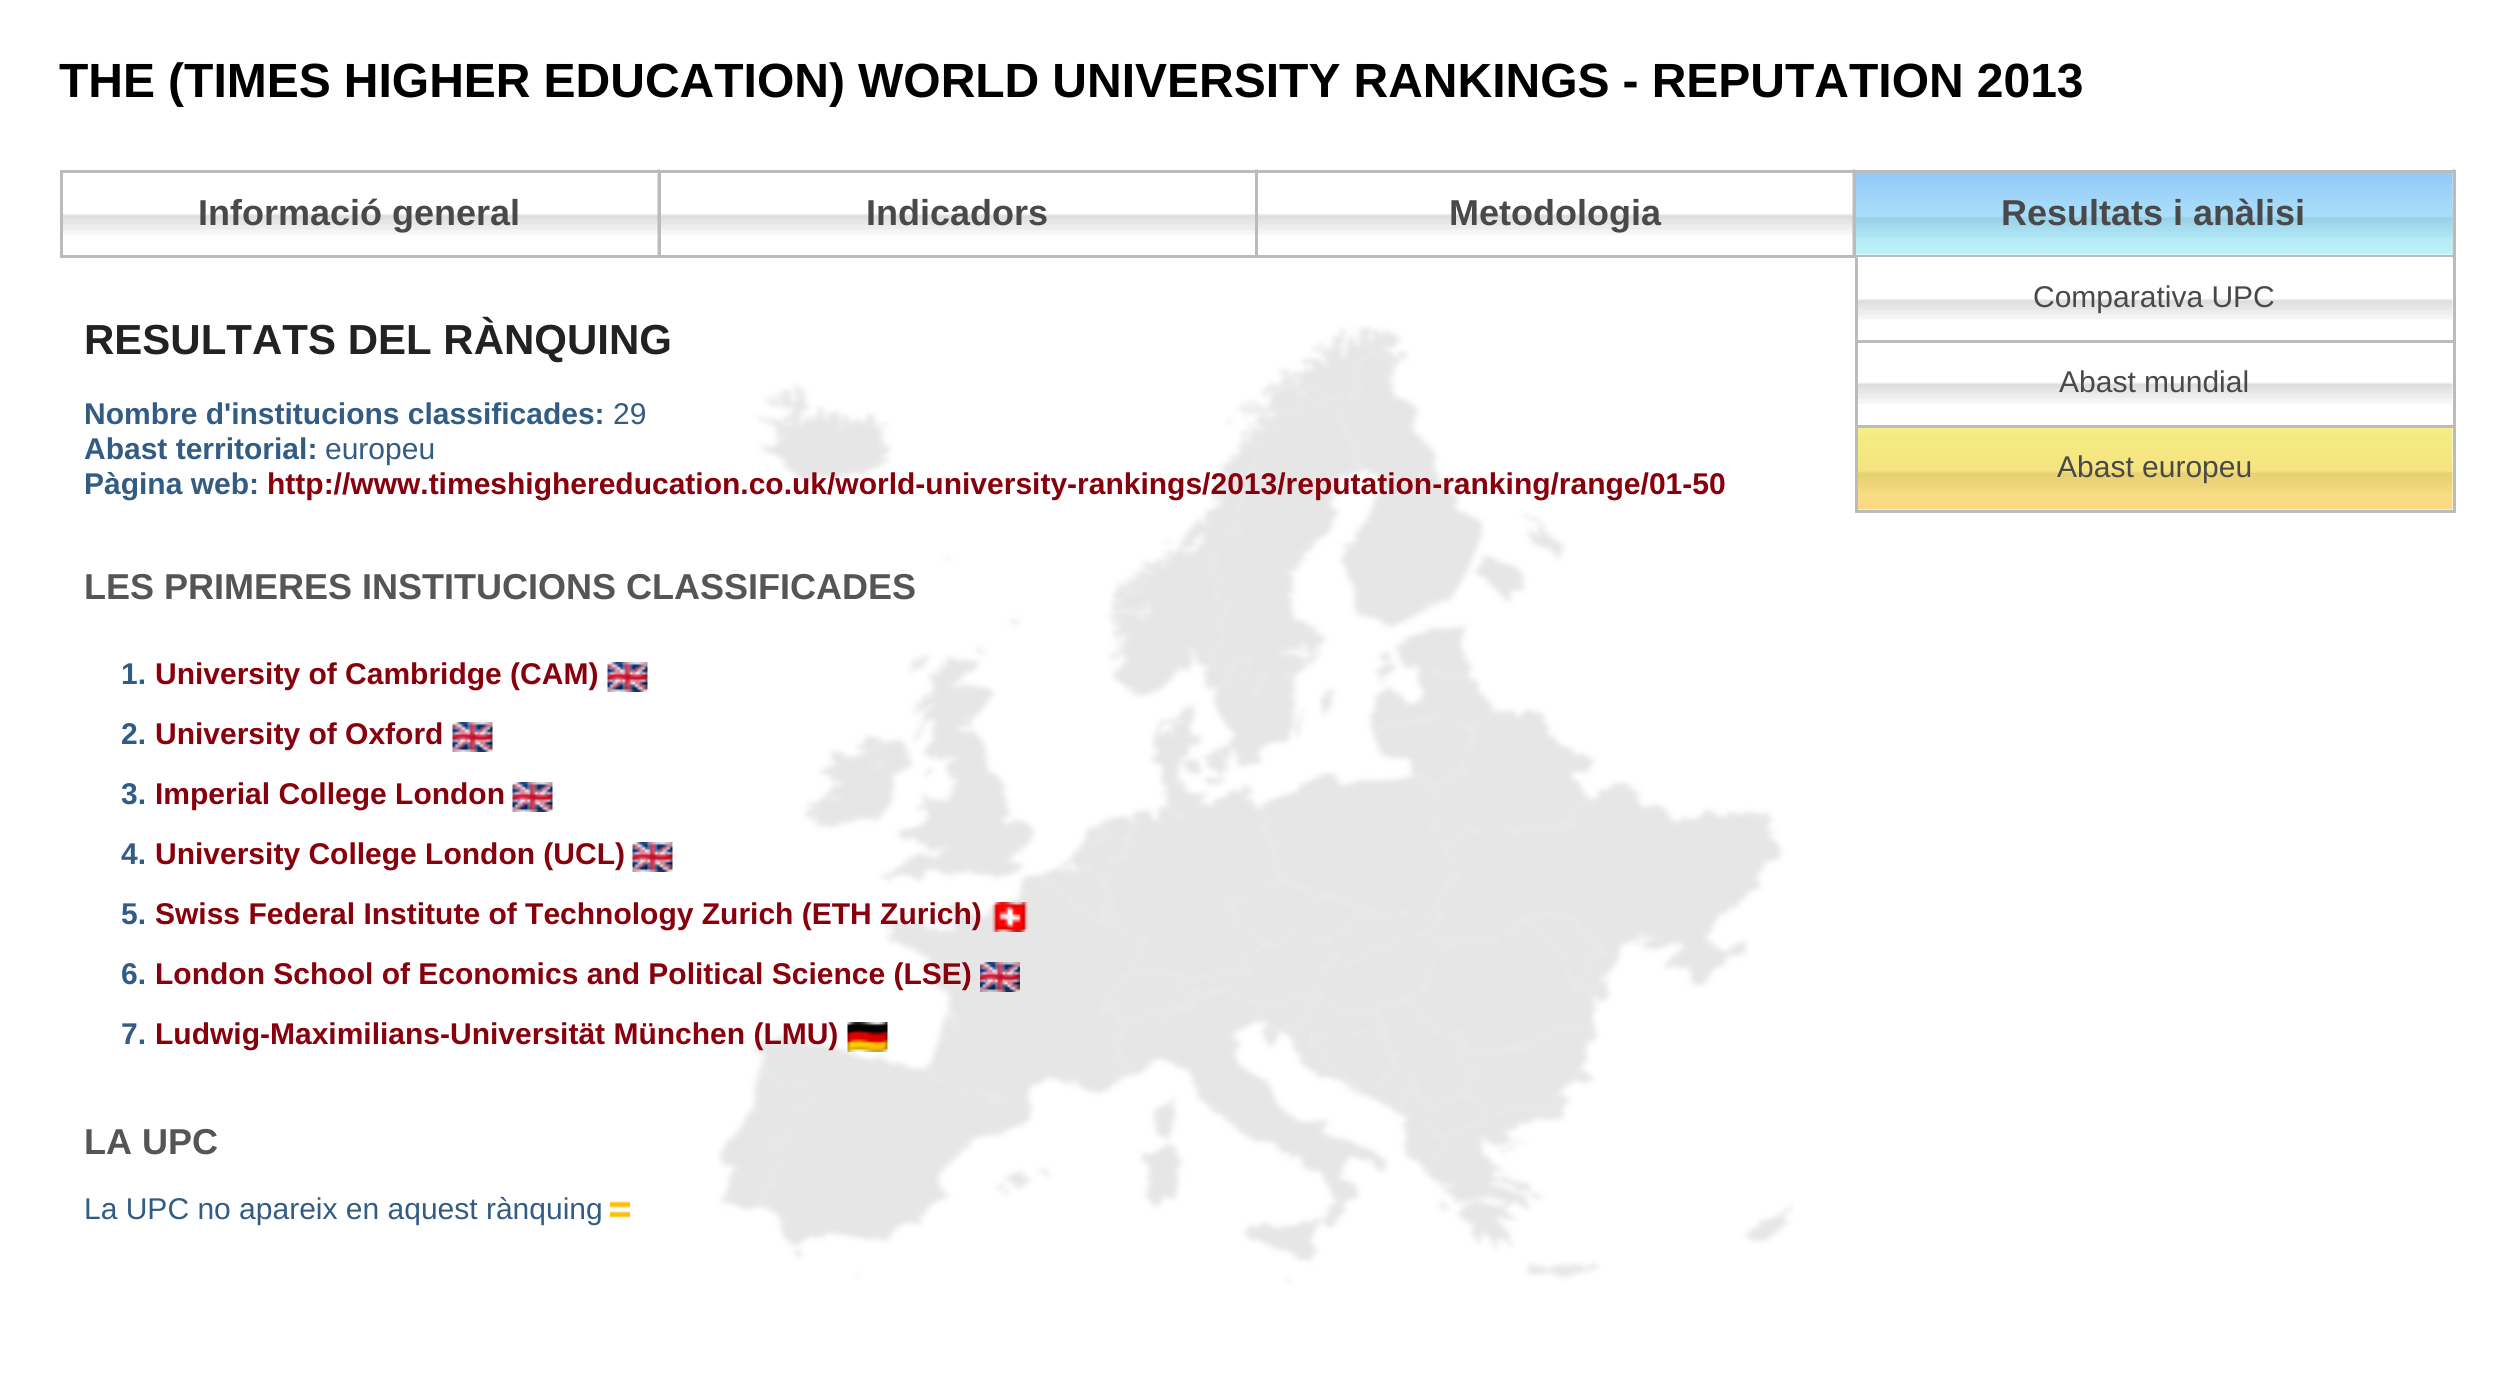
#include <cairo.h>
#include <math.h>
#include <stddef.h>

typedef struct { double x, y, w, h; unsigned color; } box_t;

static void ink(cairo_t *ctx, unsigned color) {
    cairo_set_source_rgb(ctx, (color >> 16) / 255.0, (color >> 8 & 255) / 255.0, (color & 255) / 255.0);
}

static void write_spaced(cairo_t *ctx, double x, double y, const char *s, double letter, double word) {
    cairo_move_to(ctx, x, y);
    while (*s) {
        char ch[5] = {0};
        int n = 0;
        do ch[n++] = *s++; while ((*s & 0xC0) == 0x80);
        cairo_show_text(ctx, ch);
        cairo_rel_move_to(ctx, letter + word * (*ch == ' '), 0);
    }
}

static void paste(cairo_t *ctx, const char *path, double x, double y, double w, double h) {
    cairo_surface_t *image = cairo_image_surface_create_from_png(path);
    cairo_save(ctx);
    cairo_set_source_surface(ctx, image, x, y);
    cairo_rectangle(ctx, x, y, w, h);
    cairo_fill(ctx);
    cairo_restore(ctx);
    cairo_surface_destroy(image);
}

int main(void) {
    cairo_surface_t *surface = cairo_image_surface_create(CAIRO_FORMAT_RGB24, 2512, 1389);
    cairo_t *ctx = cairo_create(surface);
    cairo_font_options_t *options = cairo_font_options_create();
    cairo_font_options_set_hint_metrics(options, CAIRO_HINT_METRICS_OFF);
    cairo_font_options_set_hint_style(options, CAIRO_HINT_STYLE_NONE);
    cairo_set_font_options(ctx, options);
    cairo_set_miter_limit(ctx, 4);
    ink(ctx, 0xFFFFFF);
    cairo_paint(ctx);
    cairo_select_font_face(ctx, "Liberation Sans", CAIRO_FONT_SLANT_NORMAL, CAIRO_FONT_WEIGHT_BOLD);
    cairo_set_font_size(ctx, 48);
    ink(ctx, 0x000000);
    write_spaced(ctx, 59, 97, "THE (TIMES HIGHER EDUCATION) WORLD UNIVERSITY RANKINGS - REPUTATION 2013", 0, -0.25);
    paste(ctx, "media/1.png", 60, 169, 2395, 86);
    {
        static const box_t items[] = {
            {60, 170, 2395, 3, 0xBBBBBB},
            {2453, 170, 3, 343, 0xBBBBBB},
            {60, 255, 2395, 3, 0xBBBBBB},
            {60, 170, 3, 88, 0xBBBBBB},
            {660, 170, 1, 88, 0xBBBBBB},
        };
        for (size_t i = 0; i < sizeof items / sizeof *items; i++) {
            ink(ctx, items[i].color);
            cairo_rectangle(ctx, items[i].x, items[i].y, items[i].w, items[i].h);
            cairo_fill(ctx);
        }
    }
    cairo_set_font_size(ctx, 36);
    ink(ctx, 0x494949);
    cairo_move_to(ctx, 198, 225);
    cairo_show_text(ctx, "Informació general");
    ink(ctx, 0xBBBBBB);
    cairo_rectangle(ctx, 1257, 170, 1, 88);
    cairo_fill(ctx);
    ink(ctx, 0x494949);
    cairo_move_to(ctx, 866, 225);
    cairo_show_text(ctx, "Indicadors");
    ink(ctx, 0xBBBBBB);
    cairo_rectangle(ctx, 1855, 170, 1, 88);
    cairo_fill(ctx);
    ink(ctx, 0x494949);
    cairo_move_to(ctx, 1449, 225);
    cairo_show_text(ctx, "Metodologia");
    paste(ctx, "media/2.png", 1856, 173, 597, 82);
    cairo_move_to(ctx, 2001, 225);
    cairo_show_text(ctx, "Resultats i anàlisi");
    paste(ctx, "media/3.png", 717, 325, 1078, 959);
    cairo_set_font_size(ctx, 42);
    ink(ctx, 0x222222);
    cairo_move_to(ctx, 84, 354);
    cairo_show_text(ctx, "RESULTATS DEL RÀNQUING");
    cairo_set_font_size(ctx, 30);
    ink(ctx, 0x335C85);
    cairo_move_to(ctx, 84, 424);
    cairo_show_text(ctx, "Nombre d'institucions classificades:");
    cairo_select_font_face(ctx, "Liberation Sans", CAIRO_FONT_SLANT_NORMAL, CAIRO_FONT_WEIGHT_NORMAL);
    cairo_move_to(ctx, 613, 424);
    cairo_show_text(ctx, "29");
    cairo_select_font_face(ctx, "Liberation Sans", CAIRO_FONT_SLANT_NORMAL, CAIRO_FONT_WEIGHT_BOLD);
    cairo_move_to(ctx, 84, 459);
    cairo_show_text(ctx, "Abast territorial:");
    cairo_select_font_face(ctx, "Liberation Sans", CAIRO_FONT_SLANT_NORMAL, CAIRO_FONT_WEIGHT_NORMAL);
    cairo_move_to(ctx, 325, 459);
    cairo_show_text(ctx, "europeu");
    cairo_select_font_face(ctx, "Liberation Sans", CAIRO_FONT_SLANT_NORMAL, CAIRO_FONT_WEIGHT_BOLD);
    cairo_move_to(ctx, 84, 494);
    cairo_show_text(ctx, "Pàgina web:");
    ink(ctx, 0x87000B);
    cairo_move_to(ctx, 267, 494);
    cairo_show_text(ctx, "http://www.timeshighereducation.co.uk/world-university-rankings/2013/reputation-ranking/range/01-50");
    cairo_set_font_size(ctx, 36);
    ink(ctx, 0x555555);
    cairo_move_to(ctx, 84, 599);
    cairo_show_text(ctx, "LES PRIMERES INSTITUCIONS CLASSIFICADES");
    cairo_set_font_size(ctx, 30);
    ink(ctx, 0x335C85);
    cairo_move_to(ctx, 121, 684);
    cairo_show_text(ctx, "1.");
    ink(ctx, 0x87000B);
    cairo_move_to(ctx, 155, 684);
    cairo_show_text(ctx, "University of Cambridge (CAM)");
    paste(ctx, "media/4.png", 607, 662, 41, 30);
    ink(ctx, 0x335C85);
    cairo_move_to(ctx, 121, 744);
    cairo_show_text(ctx, "2.");
    ink(ctx, 0x87000B);
    cairo_move_to(ctx, 155, 744);
    cairo_show_text(ctx, "University of Oxford");
    paste(ctx, "media/4.png", 452, 722, 41, 30);
    ink(ctx, 0x335C85);
    cairo_move_to(ctx, 121, 804);
    cairo_show_text(ctx, "3.");
    ink(ctx, 0x87000B);
    cairo_move_to(ctx, 155, 804);
    cairo_show_text(ctx, "Imperial College London");
    paste(ctx, "media/4.png", 512, 782, 41, 30);
    ink(ctx, 0x335C85);
    cairo_move_to(ctx, 121, 864);
    cairo_show_text(ctx, "4.");
    ink(ctx, 0x87000B);
    cairo_move_to(ctx, 155, 864);
    cairo_show_text(ctx, "University College London (UCL)");
    paste(ctx, "media/4.png", 632, 842, 41, 30);
    ink(ctx, 0x335C85);
    cairo_move_to(ctx, 121, 924);
    cairo_show_text(ctx, "5.");
    ink(ctx, 0x87000B);
    cairo_move_to(ctx, 155, 924);
    cairo_show_text(ctx, "Swiss Federal Institute of Technology Zurich (ETH Zurich)");
    paste(ctx, "media/5.png", 992, 902, 37, 30);
    ink(ctx, 0x335C85);
    cairo_move_to(ctx, 121, 984);
    cairo_show_text(ctx, "6.");
    ink(ctx, 0x87000B);
    cairo_move_to(ctx, 155, 984);
    cairo_show_text(ctx, "London School of Economics and Political Science (LSE)");
    paste(ctx, "media/6.png", 980, 962, 40, 30);
    ink(ctx, 0x335C85);
    cairo_move_to(ctx, 121, 1044);
    cairo_show_text(ctx, "7.");
    ink(ctx, 0x87000B);
    cairo_move_to(ctx, 155, 1044);
    cairo_show_text(ctx, "Ludwig-Maximilians-Universität München (LMU)");
    paste(ctx, "media/7.png", 847, 1022, 41, 30);
    cairo_set_font_size(ctx, 36);
    ink(ctx, 0x555555);
    cairo_move_to(ctx, 84, 1154);
    cairo_show_text(ctx, "LA UPC");
    cairo_select_font_face(ctx, "Liberation Sans", CAIRO_FONT_SLANT_NORMAL, CAIRO_FONT_WEIGHT_NORMAL);
    cairo_set_font_size(ctx, 30);
    ink(ctx, 0x335C85);
    cairo_move_to(ctx, 84, 1219);
    cairo_show_text(ctx, "La UPC no apareix en aquest rànquing");
    paste(ctx, "media/8.png", 610, 1201, 20, 17);
    ink(ctx, 0xBBBBBB);
    cairo_rectangle(ctx, 1855, 510, 600, 3);
    cairo_fill(ctx);
    paste(ctx, "media/9.png", 1857, 257, 596, 63);
    cairo_rectangle(ctx, 1855, 258, 3, 255);
    cairo_fill(ctx);
    cairo_rectangle(ctx, 1855, 340, 600, 3);
    cairo_fill(ctx);
    ink(ctx, 0x494949);
    cairo_move_to(ctx, 2033, 307);
    cairo_show_text(ctx, "Comparativa UPC");
    paste(ctx, "media/10.png", 1858, 382, 595, 22);
    ink(ctx, 0xBBBBBB);
    cairo_rectangle(ctx, 1855, 425, 600, 3);
    cairo_fill(ctx);
    ink(ctx, 0x494949);
    cairo_move_to(ctx, 2059, 392);
    cairo_show_text(ctx, "Abast mundial");
    paste(ctx, "media/11.png", 1858, 428, 595, 82);
    cairo_move_to(ctx, 2057, 477);
    cairo_show_text(ctx, "Abast europeu");
    cairo_surface_write_to_png(surface, "image.png");
    cairo_font_options_destroy(options);
    cairo_destroy(ctx);
    cairo_surface_destroy(surface);
    return 0;
}
